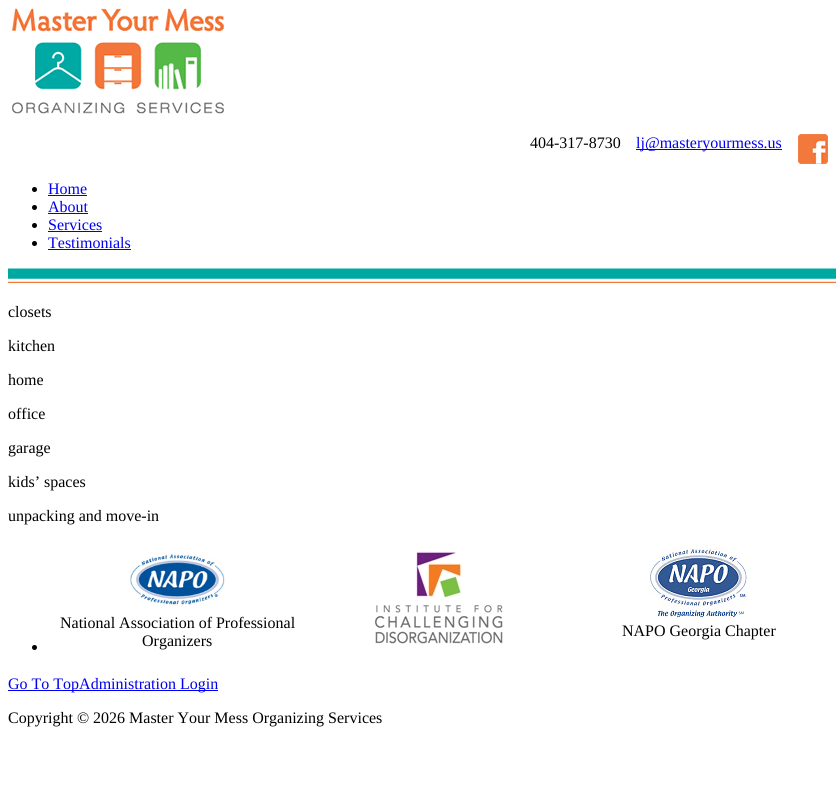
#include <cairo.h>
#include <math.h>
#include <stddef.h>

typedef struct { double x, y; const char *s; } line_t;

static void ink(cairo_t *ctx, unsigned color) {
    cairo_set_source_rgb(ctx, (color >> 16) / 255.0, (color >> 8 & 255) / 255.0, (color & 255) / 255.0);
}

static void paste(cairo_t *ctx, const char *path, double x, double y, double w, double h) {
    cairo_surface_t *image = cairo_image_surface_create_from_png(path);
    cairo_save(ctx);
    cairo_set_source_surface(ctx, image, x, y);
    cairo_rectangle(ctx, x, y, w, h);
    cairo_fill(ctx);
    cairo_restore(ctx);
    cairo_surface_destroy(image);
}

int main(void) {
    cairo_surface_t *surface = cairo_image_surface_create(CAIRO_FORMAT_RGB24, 836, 788);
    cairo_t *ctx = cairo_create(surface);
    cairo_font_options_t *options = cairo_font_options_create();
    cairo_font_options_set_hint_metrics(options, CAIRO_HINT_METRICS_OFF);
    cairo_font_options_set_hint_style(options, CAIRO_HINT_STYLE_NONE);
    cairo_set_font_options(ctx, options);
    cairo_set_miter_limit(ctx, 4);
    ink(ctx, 0xFFFFFF);
    cairo_paint(ctx);
    paste(ctx, "media/1.png", 12, 8, 212, 106);
    cairo_select_font_face(ctx, "Liberation Serif", CAIRO_FONT_SLANT_NORMAL, CAIRO_FONT_WEIGHT_NORMAL);
    cairo_set_font_size(ctx, 16);
    ink(ctx, 0x000000);
    cairo_move_to(ctx, 530, 148);
    cairo_show_text(ctx, "404-317-8730");
    ink(ctx, 0x0000EE);
    cairo_rectangle(ctx, 636, 149, 146, 1);
    cairo_fill(ctx);
    cairo_move_to(ctx, 636, 148);
    cairo_show_text(ctx, "lj@masteryourmess.us");
    paste(ctx, "media/2.png", 798, 134, 30, 30);
    ink(ctx, 0x000000);
    cairo_arc(ctx, 34.5, 189.5, 2.5, 0, 2 * M_PI);
    cairo_fill(ctx);
    ink(ctx, 0x0000EE);
    cairo_move_to(ctx, 48, 194);
    cairo_show_text(ctx, "Home");
    cairo_rectangle(ctx, 48, 195, 39, 1);
    cairo_fill(ctx);
    ink(ctx, 0x000000);
    cairo_arc(ctx, 34.5, 207.5, 2.5, 0, 2 * M_PI);
    cairo_fill(ctx);
    ink(ctx, 0x0000EE);
    cairo_move_to(ctx, 48, 212);
    cairo_show_text(ctx, "About");
    cairo_rectangle(ctx, 48, 213, 40, 1);
    cairo_fill(ctx);
    ink(ctx, 0x000000);
    cairo_arc(ctx, 34.5, 225.5, 2.5, 0, 2 * M_PI);
    cairo_fill(ctx);
    ink(ctx, 0x0000EE);
    cairo_move_to(ctx, 48, 230);
    cairo_show_text(ctx, "Services");
    cairo_rectangle(ctx, 48, 231, 54, 1);
    cairo_fill(ctx);
    ink(ctx, 0x000000);
    cairo_arc(ctx, 34.5, 243.5, 2.5, 0, 2 * M_PI);
    cairo_fill(ctx);
    ink(ctx, 0x0000EE);
    cairo_move_to(ctx, 48, 248);
    cairo_show_text(ctx, "Testimonials");
    cairo_rectangle(ctx, 48, 249, 83, 1);
    cairo_fill(ctx);
    paste(ctx, "media/3.png", 8, 268, 828, 15);
    ink(ctx, 0x000000);
    {
        static const line_t items[] = {
            {8, 317, "closets"},
            {8, 351, "kitchen"},
            {8, 385, "home"},
            {8, 419, "office"},
            {8, 453, "garage"},
            {8, 487, "kids’ spaces"},
            {8, 521, "unpacking and move-in"},
        };
        for (size_t i = 0; i < sizeof items / sizeof *items; i++) {
            cairo_move_to(ctx, items[i].x, items[i].y);
            cairo_show_text(ctx, items[i].s);
        }
    }
    cairo_new_path(ctx);
    cairo_arc(ctx, 34.5, 647.5, 2.5, 0, 2 * M_PI);
    cairo_fill(ctx);
    paste(ctx, "media/4.png", 130, 554, 95, 51);
    cairo_move_to(ctx, 60, 628);
    cairo_show_text(ctx, "National Association of Professional");
    cairo_move_to(ctx, 142, 646);
    cairo_show_text(ctx, "Organizers");
    paste(ctx, "media/5.png", 374, 551, 129, 93);
    paste(ctx, "media/6.png", 649, 548, 100, 70);
    cairo_move_to(ctx, 622, 636);
    cairo_show_text(ctx, "NAPO Georgia Chapter");
    ink(ctx, 0x0000EE);
    cairo_rectangle(ctx, 8, 690, 210, 1);
    cairo_fill(ctx);
    cairo_move_to(ctx, 8, 689);
    cairo_show_text(ctx, "Go To TopAdministration Login");
    ink(ctx, 0x000000);
    cairo_move_to(ctx, 8, 723);
    cairo_show_text(ctx, "Copyright © 2026 Master Your Mess Organizing Services");
    cairo_surface_write_to_png(surface, "image.png");
    cairo_font_options_destroy(options);
    cairo_destroy(ctx);
    cairo_surface_destroy(surface);
    return 0;
}
